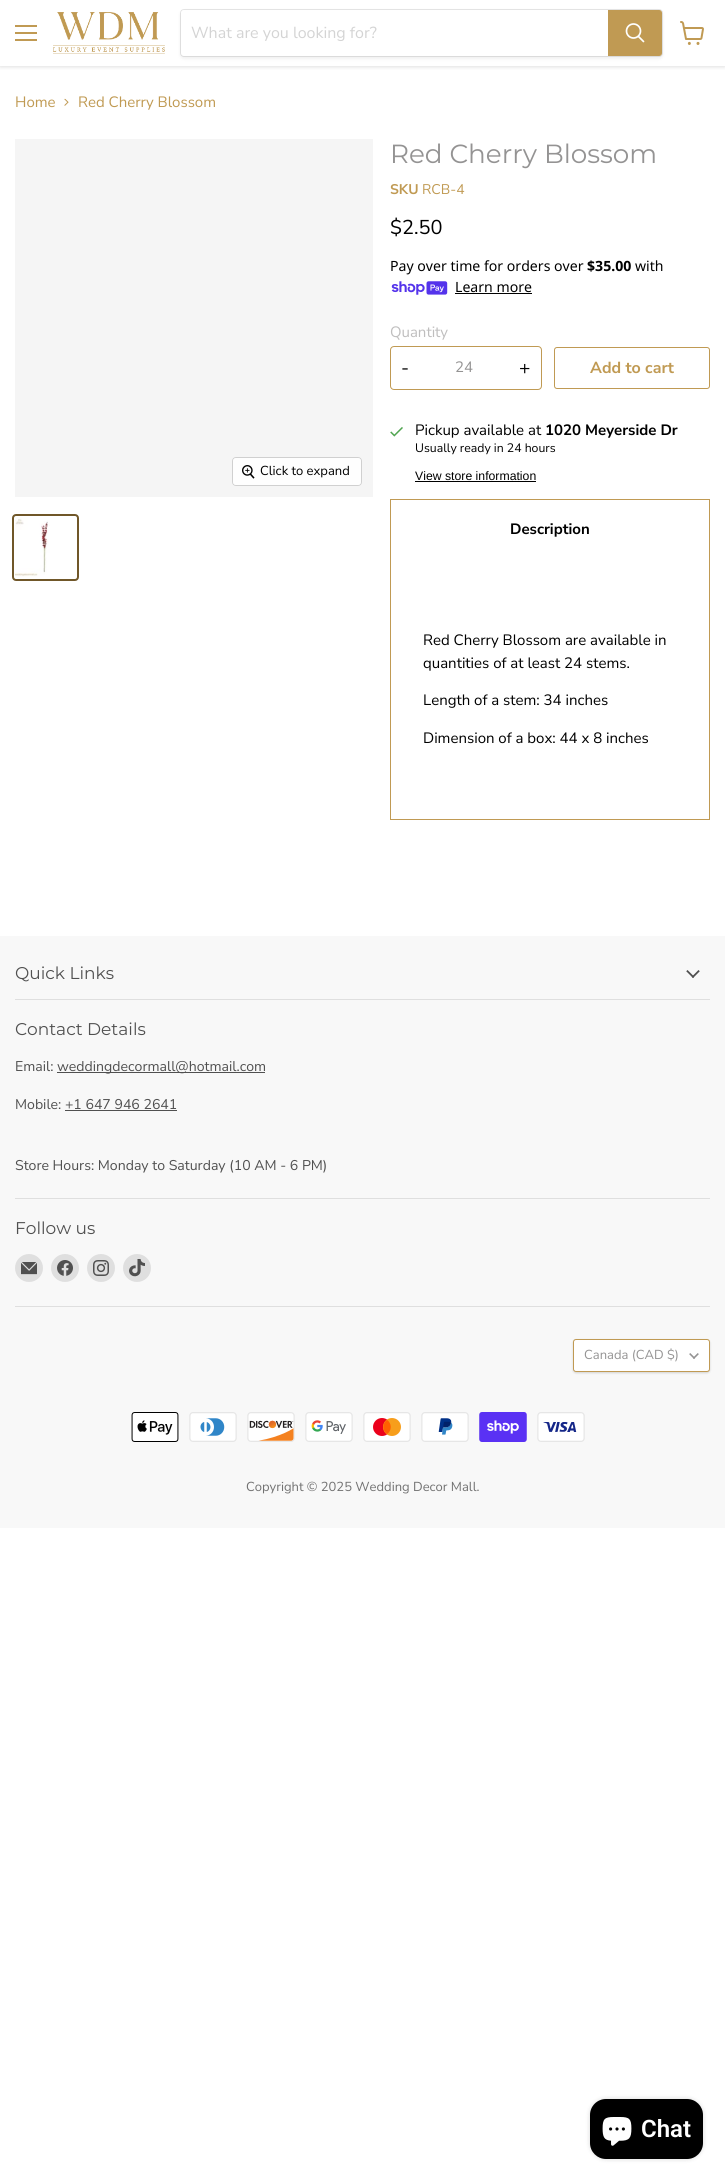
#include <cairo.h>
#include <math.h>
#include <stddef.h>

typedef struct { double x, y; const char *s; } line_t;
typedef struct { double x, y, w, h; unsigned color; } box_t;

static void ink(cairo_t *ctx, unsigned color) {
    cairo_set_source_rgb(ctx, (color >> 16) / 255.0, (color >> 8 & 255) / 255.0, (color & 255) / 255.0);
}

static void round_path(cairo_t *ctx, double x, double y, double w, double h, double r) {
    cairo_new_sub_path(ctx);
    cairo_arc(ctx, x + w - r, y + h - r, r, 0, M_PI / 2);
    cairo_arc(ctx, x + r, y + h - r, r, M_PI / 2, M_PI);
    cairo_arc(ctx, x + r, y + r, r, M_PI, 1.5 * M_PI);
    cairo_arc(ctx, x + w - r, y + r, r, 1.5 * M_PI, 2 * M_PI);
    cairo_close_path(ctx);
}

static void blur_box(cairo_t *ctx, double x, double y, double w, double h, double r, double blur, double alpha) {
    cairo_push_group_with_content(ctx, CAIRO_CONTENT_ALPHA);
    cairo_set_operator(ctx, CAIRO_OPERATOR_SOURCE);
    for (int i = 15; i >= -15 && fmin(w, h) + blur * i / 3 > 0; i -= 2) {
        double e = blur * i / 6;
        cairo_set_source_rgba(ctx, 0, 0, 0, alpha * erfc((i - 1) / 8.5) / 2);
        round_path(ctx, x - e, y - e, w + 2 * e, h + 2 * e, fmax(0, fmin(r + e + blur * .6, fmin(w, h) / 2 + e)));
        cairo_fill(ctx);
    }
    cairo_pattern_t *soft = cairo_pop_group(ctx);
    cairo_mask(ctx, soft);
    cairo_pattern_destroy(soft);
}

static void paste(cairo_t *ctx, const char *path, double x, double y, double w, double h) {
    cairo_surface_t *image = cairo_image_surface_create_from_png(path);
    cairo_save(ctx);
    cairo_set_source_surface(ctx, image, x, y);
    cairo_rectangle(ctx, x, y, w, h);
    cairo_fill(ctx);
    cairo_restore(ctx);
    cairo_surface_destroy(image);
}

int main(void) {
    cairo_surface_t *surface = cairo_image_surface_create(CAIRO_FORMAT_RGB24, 725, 2180);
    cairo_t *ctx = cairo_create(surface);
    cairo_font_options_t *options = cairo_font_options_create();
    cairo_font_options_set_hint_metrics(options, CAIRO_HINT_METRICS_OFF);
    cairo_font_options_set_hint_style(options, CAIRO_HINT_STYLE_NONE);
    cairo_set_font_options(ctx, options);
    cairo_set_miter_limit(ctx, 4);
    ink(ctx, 0xFFFFFF);
    cairo_paint(ctx);
    cairo_save(ctx);
    cairo_rectangle(ctx, 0, 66, 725, 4);
    cairo_clip(ctx);
    ink(ctx, 0x808080);
    blur_box(ctx, 0, 1, 725, 66, 0, 2, 0.25);
    cairo_restore(ctx);
    {
        static const box_t items[] = {
            {15, 25, 22, 2, 0xC09A53},
            {15, 32, 22, 2, 0xC09A53},
            {15, 39, 22, 2, 0xC09A53},
        };
        for (size_t i = 0; i < sizeof items / sizeof *items; i++) {
            ink(ctx, items[i].color);
            cairo_rectangle(ctx, items[i].x, items[i].y, items[i].w, items[i].h);
            cairo_fill(ctx);
        }
    }
    paste(ctx, "media/1.png", 53, 12, 112, 42);
    ink(ctx, 0x808080);
    blur_box(ctx, 180, 11, 483, 48, 4, 1.5, 0.11);
    round_path(ctx, 180.5, 9.5, 482, 47, 3.5);
    cairo_set_source_rgba(ctx, 0.502, 0.502, 0.502, 0.2);
    cairo_set_line_width(ctx, 1);
    cairo_stroke(ctx);
    ink(ctx, 0xFFFFFF);
    cairo_new_path(ctx);
    cairo_move_to(ctx, 184, 10);
    cairo_line_to(ctx, 608, 10);
    cairo_line_to(ctx, 608, 56);
    cairo_line_to(ctx, 184, 56);
    cairo_curve_to(ctx, 182.5, 56, 181, 54.5, 181, 53);
    cairo_line_to(ctx, 181, 13);
    cairo_curve_to(ctx, 181, 11.5, 182.5, 10, 184, 10);
    cairo_close_path(ctx);
    cairo_fill(ctx);
    cairo_select_font_face(ctx, "Nunito Sans", CAIRO_FONT_SLANT_NORMAL, CAIRO_FONT_WEIGHT_NORMAL);
    cairo_set_font_size(ctx, 16);
    ink(ctx, 0xD4D4D4);
    cairo_move_to(ctx, 191, 38);
    cairo_show_text(ctx, "What are you looking for?");
    ink(ctx, 0xC09A53);
    cairo_new_path(ctx);
    cairo_move_to(ctx, 608.5, 10.5);
    cairo_line_to(ctx, 659, 10.5);
    cairo_curve_to(ctx, 660.5, 10.5, 661.5, 11.5, 661.5, 13);
    cairo_line_to(ctx, 661.5, 53);
    cairo_curve_to(ctx, 661.5, 54.5, 660.5, 55.5, 659, 55.5);
    cairo_line_to(ctx, 608.5, 55.5);
    cairo_close_path(ctx);
    cairo_fill_preserve(ctx);
    cairo_stroke(ctx);
    cairo_new_path(ctx);
    cairo_move_to(ctx, 643.5, 41.5);
    cairo_line_to(ctx, 638.5, 36.5);
    ink(ctx, 0xFFFFFF);
    cairo_set_line_width(ctx, 1.7);
    cairo_set_line_cap(ctx, CAIRO_LINE_CAP_ROUND);
    cairo_stroke(ctx);
    cairo_arc(ctx, 633.5, 31, 7, 0, 2 * M_PI);
    cairo_set_line_cap(ctx, CAIRO_LINE_CAP_BUTT);
    cairo_stroke(ctx);
    paste(ctx, "media/2.png", 680, 21, 24, 24);
    cairo_set_font_size(ctx, 15);
    ink(ctx, 0xC09A53);
    cairo_move_to(ctx, 15, 107);
    cairo_show_text(ctx, "Home");
    paste(ctx, "media/3.png", 64, 98, 5, 8);
    cairo_move_to(ctx, 78, 107);
    cairo_show_text(ctx, "Red Cherry Blossom");
    ink(ctx, 0xF5F5F5);
    cairo_rectangle(ctx, 15, 139, 358, 358);
    cairo_fill(ctx);
    round_path(ctx, 232.5, 457.5, 129, 28, 3.5);
    ink(ctx, 0xD0D0D0);
    cairo_set_line_width(ctx, 1);
    cairo_stroke(ctx);
    cairo_set_source_rgba(ctx, 1, 1, 1, 0.9);
    round_path(ctx, 233, 458, 128, 27, 3);
    cairo_fill(ctx);
    paste(ctx, "media/4.png", 242, 465, 13, 14);
    cairo_set_font_size(ctx, 13);
    ink(ctx, 0x000000);
    cairo_move_to(ctx, 260, 475);
    cairo_show_text(ctx, "Click to expand");
    round_path(ctx, 13, 515, 65, 65, 3);
    ink(ctx, 0x705729);
    cairo_set_line_width(ctx, 2);
    cairo_stroke(ctx);
    paste(ctx, "media/5.png", 15, 517, 35, 60);
    cairo_select_font_face(ctx, "Montserrat", CAIRO_FONT_SLANT_NORMAL, CAIRO_FONT_WEIGHT_NORMAL);
    cairo_set_font_size(ctx, 26.25);
    ink(ctx, 0x949393);
    cairo_move_to(ctx, 390, 163);
    cairo_show_text(ctx, "Red Cherry Blossom");
    cairo_select_font_face(ctx, "Nunito Sans", CAIRO_FONT_SLANT_NORMAL, CAIRO_FONT_WEIGHT_BOLD);
    cairo_set_font_size(ctx, 14);
    ink(ctx, 0xC09A53);
    cairo_move_to(ctx, 390, 194);
    cairo_show_text(ctx, "SKU");
    cairo_select_font_face(ctx, "Nunito Sans", CAIRO_FONT_SLANT_NORMAL, CAIRO_FONT_WEIGHT_NORMAL);
    cairo_move_to(ctx, 422, 194);
    cairo_show_text(ctx, "RCB-4");
    cairo_set_font_size(ctx, 20);
    ink(ctx, 0x000000);
    cairo_move_to(ctx, 390, 234);
    cairo_show_text(ctx, "$2.50");
    cairo_select_font_face(ctx, "Noto Sans", CAIRO_FONT_SLANT_NORMAL, CAIRO_FONT_WEIGHT_NORMAL);
    cairo_set_font_size(ctx, 14.1);
    cairo_move_to(ctx, 390, 271);
    cairo_show_text(ctx, "Pay over time for orders over");
    cairo_select_font_face(ctx, "Noto Sans", CAIRO_FONT_SLANT_NORMAL, CAIRO_FONT_WEIGHT_BOLD);
    cairo_move_to(ctx, 587, 271);
    cairo_show_text(ctx, "$35.00");
    cairo_select_font_face(ctx, "Noto Sans", CAIRO_FONT_SLANT_NORMAL, CAIRO_FONT_WEIGHT_NORMAL);
    cairo_move_to(ctx, 635, 271);
    cairo_show_text(ctx, "with");
    paste(ctx, "media/6.png", 391, 281, 57, 14);
    cairo_move_to(ctx, 455, 292);
    cairo_show_text(ctx, "Learn more");
    cairo_rectangle(ctx, 455, 293, 77, 1);
    cairo_fill(ctx);
    cairo_select_font_face(ctx, "Nunito Sans", CAIRO_FONT_SLANT_NORMAL, CAIRO_FONT_WEIGHT_NORMAL);
    cairo_set_font_size(ctx, 15);
    ink(ctx, 0xBFBEBE);
    cairo_move_to(ctx, 390, 337);
    cairo_show_text(ctx, "Quantity");
    round_path(ctx, 390.5, 346.5, 151, 43, 3.5);
    ink(ctx, 0xC09A53);
    cairo_set_line_width(ctx, 1);
    cairo_stroke(ctx);
    cairo_set_font_size(ctx, 19);
    ink(ctx, 0x000000);
    cairo_move_to(ctx, 401, 374);
    cairo_show_text(ctx, "-");
    cairo_set_font_size(ctx, 15);
    ink(ctx, 0x949393);
    cairo_move_to(ctx, 455, 372);
    cairo_show_text(ctx, "24");
    cairo_set_font_size(ctx, 19);
    ink(ctx, 0x000000);
    cairo_move_to(ctx, 519, 374);
    cairo_show_text(ctx, "+");
    round_path(ctx, 554.5, 347.5, 155, 41, 2.5);
    ink(ctx, 0xC09A53);
    cairo_stroke(ctx);
    cairo_select_font_face(ctx, "Nunito Sans", CAIRO_FONT_SLANT_NORMAL, CAIRO_FONT_WEIGHT_BOLD);
    cairo_set_font_size(ctx, 16);
    cairo_move_to(ctx, 590, 373);
    cairo_show_text(ctx, "Add to cart");
    paste(ctx, "media/7.png", 390, 427, 13, 10);
    cairo_select_font_face(ctx, "Nunito Sans", CAIRO_FONT_SLANT_NORMAL, CAIRO_FONT_WEIGHT_NORMAL);
    cairo_set_font_size(ctx, 15);
    ink(ctx, 0x000000);
    cairo_move_to(ctx, 415, 435);
    cairo_show_text(ctx, "Pickup available at");
    cairo_select_font_face(ctx, "Nunito Sans", CAIRO_FONT_SLANT_NORMAL, CAIRO_FONT_WEIGHT_BOLD);
    cairo_move_to(ctx, 545, 435);
    cairo_show_text(ctx, "1020 Meyerside Dr");
    cairo_select_font_face(ctx, "Nunito Sans", CAIRO_FONT_SLANT_NORMAL, CAIRO_FONT_WEIGHT_NORMAL);
    cairo_set_font_size(ctx, 12.25);
    cairo_move_to(ctx, 415, 452);
    cairo_show_text(ctx, "Usually ready in 24 hours");
    cairo_select_font_face(ctx, "Liberation Sans", CAIRO_FONT_SLANT_NORMAL, CAIRO_FONT_WEIGHT_NORMAL);
    cairo_move_to(ctx, 415, 480);
    cairo_show_text(ctx, "View store information");
    {
        static const box_t items[] = {
            {415, 481, 121, 1, 0x000000},
            {390, 499, 320, 1, 0xC09A53},
            {709, 499, 1, 321, 0xC09A53},
            {390, 499, 1, 61, 0xC09A53},
        };
        for (size_t i = 0; i < sizeof items / sizeof *items; i++) {
            ink(ctx, items[i].color);
            cairo_rectangle(ctx, items[i].x, items[i].y, items[i].w, items[i].h);
            cairo_fill(ctx);
        }
    }
    cairo_select_font_face(ctx, "Nunito Sans", CAIRO_FONT_SLANT_NORMAL, CAIRO_FONT_WEIGHT_BOLD);
    cairo_set_font_size(ctx, 15);
    ink(ctx, 0x000000);
    cairo_move_to(ctx, 510, 534);
    cairo_show_text(ctx, "Description");
    ink(ctx, 0xC09A53);
    cairo_rectangle(ctx, 390, 819, 320, 1);
    cairo_fill(ctx);
    cairo_rectangle(ctx, 390, 560, 1, 260);
    cairo_fill(ctx);
    cairo_select_font_face(ctx, "Nunito Sans", CAIRO_FONT_SLANT_NORMAL, CAIRO_FONT_WEIGHT_NORMAL);
    ink(ctx, 0x000000);
    {
        static const line_t items[] = {
            {423, 645, "Red Cherry Blossom are available in"},
            {423, 668, "quantities of at least 24 stems."},
            {423, 705, "Length of a stem: 34 inches"},
            {423, 743, "Dimension of a box: 44 x 8 inches"},
        };
        for (size_t i = 0; i < sizeof items / sizeof *items; i++) {
            cairo_move_to(ctx, items[i].x, items[i].y);
            cairo_show_text(ctx, items[i].s);
        }
    }
    ink(ctx, 0xF8F8F8);
    cairo_rectangle(ctx, 0, 936, 725, 592);
    cairo_fill(ctx);
    ink(ctx, 0xDFDFDF);
    cairo_rectangle(ctx, 15, 999, 695, 1);
    cairo_fill(ctx);
    cairo_select_font_face(ctx, "Montserrat", CAIRO_FONT_SLANT_NORMAL, CAIRO_FONT_WEIGHT_NORMAL);
    cairo_set_font_size(ctx, 17);
    ink(ctx, 0x505050);
    cairo_move_to(ctx, 15, 979);
    cairo_show_text(ctx, "Quick Links");
    paste(ctx, "media/8.png", 686, 970, 14, 8);
    ink(ctx, 0xDFDFDF);
    cairo_rectangle(ctx, 15, 1198, 695, 1);
    cairo_fill(ctx);
    ink(ctx, 0x505050);
    cairo_move_to(ctx, 15, 1035);
    cairo_show_text(ctx, "Contact Details");
    cairo_select_font_face(ctx, "Nunito Sans", CAIRO_FONT_SLANT_NORMAL, CAIRO_FONT_WEIGHT_NORMAL);
    cairo_set_font_size(ctx, 14.1);
    cairo_move_to(ctx, 15, 1071);
    cairo_show_text(ctx, "Email:");
    cairo_rectangle(ctx, 57, 1072, 208, 1);
    cairo_fill(ctx);
    cairo_move_to(ctx, 57, 1071);
    cairo_show_text(ctx, "weddingdecormall@hotmail.com");
    cairo_move_to(ctx, 15, 1109);
    cairo_show_text(ctx, "Mobile: +1 647 946 2641");
    cairo_rectangle(ctx, 65, 1110, 112, 1);
    cairo_fill(ctx);
    cairo_move_to(ctx, 15, 1170);
    cairo_show_text(ctx, "Store Hours: Monday to Saturday (10 AM - 6 PM)");
    ink(ctx, 0xDFDFDF);
    cairo_rectangle(ctx, 15, 1306, 695, 1);
    cairo_fill(ctx);
    cairo_select_font_face(ctx, "Montserrat", CAIRO_FONT_SLANT_NORMAL, CAIRO_FONT_WEIGHT_NORMAL);
    cairo_set_font_size(ctx, 17);
    ink(ctx, 0x505050);
    cairo_move_to(ctx, 15, 1234);
    cairo_show_text(ctx, "Follow us");
    ink(ctx, 0xDFDFDF);
    cairo_new_path(ctx);
    cairo_arc(ctx, 29, 1268, 14, 0, 2 * M_PI);
    cairo_fill(ctx);
    paste(ctx, "media/9.png", 21, 1262, 16, 13);
    cairo_arc(ctx, 65, 1268, 14, 0, 2 * M_PI);
    cairo_fill(ctx);
    paste(ctx, "media/10.png", 57, 1260, 16, 16);
    cairo_arc(ctx, 101, 1268, 14, 0, 2 * M_PI);
    cairo_fill(ctx);
    paste(ctx, "media/11.png", 93, 1260, 16, 16);
    cairo_arc(ctx, 137, 1268, 14, 0, 2 * M_PI);
    cairo_fill(ctx);
    paste(ctx, "media/12.png", 129, 1259, 16, 18);
    ink(ctx, 0x000000);
    blur_box(ctx, 573, 1340, 137, 33, 3, 1, 0.15);
    ink(ctx, 0xFFFFFF);
    round_path(ctx, 573.5, 1339.5, 136, 32, 2.5);
    cairo_fill_preserve(ctx);
    ink(ctx, 0xC09A53);
    cairo_stroke(ctx);
    cairo_select_font_face(ctx, "Nunito Sans", CAIRO_FONT_SLANT_NORMAL, CAIRO_FONT_WEIGHT_NORMAL);
    cairo_set_font_size(ctx, 13);
    ink(ctx, 0x949393);
    cairo_move_to(ctx, 584, 1359);
    cairo_show_text(ctx, "Canada (CAD $)");
    paste(ctx, "media/13.png", 689, 1353, 10, 6);
    paste(ctx, "media/14.png", 131, 1412, 48, 30);
    paste(ctx, "media/15.png", 189, 1412, 48, 30);
    paste(ctx, "media/16.png", 247, 1412, 48, 30);
    paste(ctx, "media/17.png", 305, 1412, 48, 30);
    paste(ctx, "media/18.png", 363, 1412, 48, 30);
    paste(ctx, "media/19.png", 421, 1412, 48, 30);
    paste(ctx, "media/20.png", 479, 1412, 48, 30);
    paste(ctx, "media/21.png", 537, 1412, 48, 30);
    ink(ctx, 0x727272);
    cairo_move_to(ctx, 246, 1491);
    cairo_show_text(ctx, "Copyright © 2025 Wedding Decor Mall.");
    ink(ctx, 0x000000);
    blur_box(ctx, 590, 2099, 113, 60, 16, 2.5, 0.15);
    ink(ctx, 0x000000);
    round_path(ctx, 590, 2099, 113, 60, 16);
    cairo_fill(ctx);
    paste(ctx, "media/22.png", 602, 2117, 30, 29);
    cairo_select_font_face(ctx, "Roboto SemiBold", CAIRO_FONT_SLANT_NORMAL, CAIRO_FONT_WEIGHT_NORMAL);
    cairo_set_font_size(ctx, 24);
    ink(ctx, 0xFFFFFF);
    cairo_move_to(ctx, 641, 2137);
    cairo_show_text(ctx, "Chat");
    cairo_surface_write_to_png(surface, "image.png");
    cairo_font_options_destroy(options);
    cairo_destroy(ctx);
    cairo_surface_destroy(surface);
    return 0;
}
